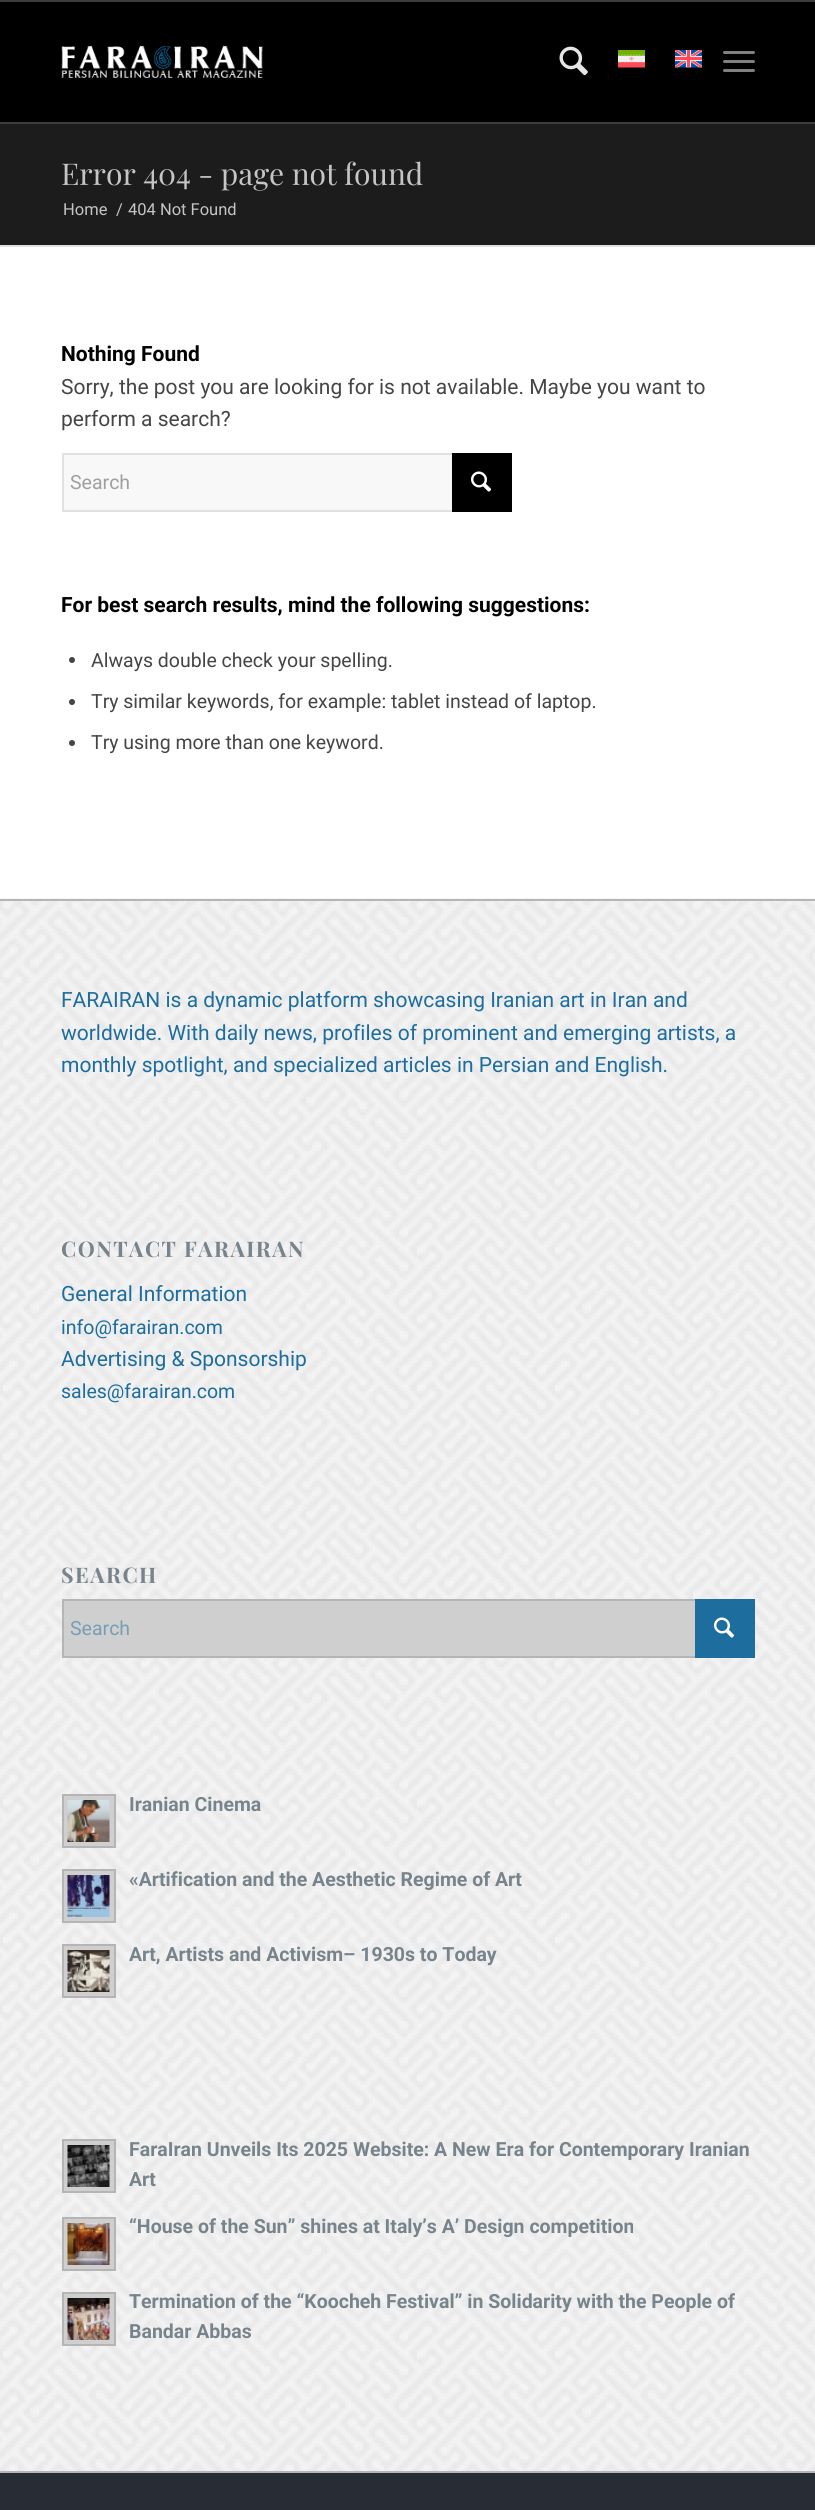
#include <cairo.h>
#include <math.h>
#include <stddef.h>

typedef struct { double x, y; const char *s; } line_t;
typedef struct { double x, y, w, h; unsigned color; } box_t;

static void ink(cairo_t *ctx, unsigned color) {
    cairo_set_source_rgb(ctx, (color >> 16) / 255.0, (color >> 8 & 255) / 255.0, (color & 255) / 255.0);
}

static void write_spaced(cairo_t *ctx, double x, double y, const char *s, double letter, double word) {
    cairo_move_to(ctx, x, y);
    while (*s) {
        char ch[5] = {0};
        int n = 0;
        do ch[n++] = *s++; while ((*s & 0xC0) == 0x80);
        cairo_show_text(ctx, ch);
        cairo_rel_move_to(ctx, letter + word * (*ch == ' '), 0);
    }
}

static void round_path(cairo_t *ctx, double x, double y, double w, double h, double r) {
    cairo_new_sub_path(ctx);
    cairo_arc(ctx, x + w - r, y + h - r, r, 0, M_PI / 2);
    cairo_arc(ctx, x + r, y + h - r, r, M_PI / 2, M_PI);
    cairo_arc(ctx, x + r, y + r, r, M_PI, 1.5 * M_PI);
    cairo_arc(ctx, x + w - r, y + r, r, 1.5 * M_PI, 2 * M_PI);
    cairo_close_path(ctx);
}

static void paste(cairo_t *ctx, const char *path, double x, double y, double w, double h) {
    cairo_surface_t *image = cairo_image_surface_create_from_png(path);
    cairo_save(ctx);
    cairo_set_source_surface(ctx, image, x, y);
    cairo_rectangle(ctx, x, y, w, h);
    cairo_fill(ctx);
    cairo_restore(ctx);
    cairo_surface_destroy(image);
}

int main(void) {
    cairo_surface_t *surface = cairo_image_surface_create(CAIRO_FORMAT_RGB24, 815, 2510);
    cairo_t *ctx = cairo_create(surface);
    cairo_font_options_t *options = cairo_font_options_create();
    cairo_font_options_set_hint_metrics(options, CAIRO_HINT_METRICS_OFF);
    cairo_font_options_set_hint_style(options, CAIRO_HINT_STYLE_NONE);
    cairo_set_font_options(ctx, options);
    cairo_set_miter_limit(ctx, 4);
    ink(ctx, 0x1C1C1C);
    cairo_paint(ctx);
    {
        static const box_t items[] = {
            {0, 0, 815, 2, 0x3D3D3D},
            {0, 122, 815, 2, 0x3D3D3D},
            {0, 2, 815, 120, 0x000000},
        };
        for (size_t i = 0; i < sizeof items / sizeof *items; i++) {
            ink(ctx, items[i].color);
            cairo_rectangle(ctx, items[i].x, items[i].y, items[i].w, items[i].h);
            cairo_fill(ctx);
        }
    }
    paste(ctx, "media/1.png", 61, 45, 202, 33);
    paste(ctx, "media/2.png", 559, 46, 29, 30);
    paste(ctx, "media/3.png", 618, 50, 27, 18);
    paste(ctx, "media/4.png", 675, 50, 27, 18);
    ink(ctx, 0x808080);
    round_path(ctx, 723, 60, 32, 3, 1.5);
    cairo_fill(ctx);
    round_path(ctx, 723, 51, 32, 3, 1.5);
    cairo_fill(ctx);
    round_path(ctx, 723, 69, 32, 3, 1.5);
    cairo_fill(ctx);
    cairo_select_font_face(ctx, "Playfair Display", CAIRO_FONT_SLANT_NORMAL, CAIRO_FONT_WEIGHT_NORMAL);
    cairo_set_font_size(ctx, 30);
    ink(ctx, 0xC5C5C5);
    cairo_move_to(ctx, 61, 185);
    cairo_show_text(ctx, "Error 404 - page not found");
    cairo_select_font_face(ctx, "Roboto", CAIRO_FONT_SLANT_NORMAL, CAIRO_FONT_WEIGHT_NORMAL);
    cairo_set_font_size(ctx, 16.5);
    {
        static const line_t items[] = {
            {63, 215, "Home"},
            {116, 215, "/"},
            {128, 215, "404 Not Found"},
        };
        for (size_t i = 0; i < sizeof items / sizeof *items; i++) {
            cairo_move_to(ctx, items[i].x, items[i].y);
            cairo_show_text(ctx, items[i].s);
        }
    }
    ink(ctx, 0xFFFFFF);
    cairo_rectangle(ctx, 0, 247, 815, 652);
    cairo_fill(ctx);
    ink(ctx, 0xE1E1E1);
    cairo_rectangle(ctx, 0, 245, 815, 2);
    cairo_fill(ctx);
    cairo_select_font_face(ctx, "Roboto", CAIRO_FONT_SLANT_NORMAL, CAIRO_FONT_WEIGHT_BOLD);
    cairo_set_font_size(ctx, 21);
    ink(ctx, 0x000000);
    cairo_move_to(ctx, 61, 361);
    cairo_show_text(ctx, "Nothing Found");
    cairo_select_font_face(ctx, "Roboto", CAIRO_FONT_SLANT_NORMAL, CAIRO_FONT_WEIGHT_NORMAL);
    ink(ctx, 0x454545);
    cairo_move_to(ctx, 61, 394);
    cairo_show_text(ctx, "Sorry, the post you are looking for is not available. Maybe you want to");
    cairo_move_to(ctx, 61, 426);
    cairo_show_text(ctx, "perform a search?");
    ink(ctx, 0xF8F8F8);
    cairo_rectangle(ctx, 64, 455, 388, 55);
    cairo_fill(ctx);
    cairo_rectangle(ctx, 63, 454, 448, 57);
    ink(ctx, 0xE1E1E1);
    cairo_stroke(ctx);
    cairo_set_font_size(ctx, 19.5);
    ink(ctx, 0x9F9F9F);
    cairo_move_to(ctx, 70, 489);
    cairo_show_text(ctx, "Search");
    ink(ctx, 0x000000);
    cairo_rectangle(ctx, 452, 453, 60, 59);
    cairo_fill(ctx);
    paste(ctx, "media/5.png", 471, 471, 21, 21);
    cairo_select_font_face(ctx, "Roboto", CAIRO_FONT_SLANT_NORMAL, CAIRO_FONT_WEIGHT_BOLD);
    cairo_set_font_size(ctx, 21);
    cairo_move_to(ctx, 61, 612);
    cairo_show_text(ctx, "For best search results, mind the following suggestions:");
    ink(ctx, 0x454545);
    cairo_new_path(ctx);
    cairo_arc(ctx, 72, 660, 3, 0, 2 * M_PI);
    cairo_fill(ctx);
    cairo_select_font_face(ctx, "Roboto", CAIRO_FONT_SLANT_NORMAL, CAIRO_FONT_WEIGHT_NORMAL);
    cairo_set_font_size(ctx, 19.5);
    cairo_move_to(ctx, 91, 667);
    cairo_show_text(ctx, "Always double check your spelling.");
    cairo_new_path(ctx);
    cairo_arc(ctx, 72, 702, 3, 0, 2 * M_PI);
    cairo_fill(ctx);
    cairo_move_to(ctx, 91, 708);
    cairo_show_text(ctx, "Try similar keywords, for example: tablet instead of laptop.");
    cairo_new_path(ctx);
    cairo_arc(ctx, 72, 743, 3, 0, 2 * M_PI);
    cairo_fill(ctx);
    cairo_move_to(ctx, 91, 749);
    cairo_show_text(ctx, "Try using more than one keyword.");
    paste(ctx, "media/6.png", 0, 898, 815, 1573);
    ink(ctx, 0xB5B5B5);
    cairo_rectangle(ctx, 0, 899, 815, 2);
    cairo_fill(ctx);
    cairo_set_font_size(ctx, 21);
    ink(ctx, 0x1D6D9E);
    {
        static const line_t items[] = {
            {61, 1007, "FARAIRAN is a dynamic platform showcasing Iranian art in Iran and"},
            {61, 1040, "worldwide. With daily news, profiles of prominent and emerging artists, a"},
            {61, 1072, "monthly spotlight, and specialized articles in Persian and English."},
        };
        for (size_t i = 0; i < sizeof items / sizeof *items; i++) {
            cairo_move_to(ctx, items[i].x, items[i].y);
            cairo_show_text(ctx, items[i].s);
        }
    }
    cairo_select_font_face(ctx, "Playfair Display", CAIRO_FONT_SLANT_NORMAL, CAIRO_FONT_WEIGHT_BOLD);
    cairo_set_font_size(ctx, 21.5);
    ink(ctx, 0x78848C);
    write_spaced(ctx, 61, 1257, "CONTACT FARAIRAN", 1.5, 0);
    cairo_select_font_face(ctx, "Roboto", CAIRO_FONT_SLANT_NORMAL, CAIRO_FONT_WEIGHT_NORMAL);
    cairo_set_font_size(ctx, 21);
    ink(ctx, 0x1D6D9E);
    cairo_move_to(ctx, 61, 1301);
    cairo_show_text(ctx, "General Information");
    cairo_set_font_size(ctx, 19.5);
    cairo_move_to(ctx, 61, 1334);
    cairo_show_text(ctx, "info@farairan.com");
    cairo_set_font_size(ctx, 21);
    cairo_move_to(ctx, 61, 1366);
    cairo_show_text(ctx, "Advertising & Sponsorship");
    cairo_set_font_size(ctx, 19.5);
    cairo_move_to(ctx, 61, 1398);
    cairo_show_text(ctx, "sales@farairan.com");
    cairo_select_font_face(ctx, "Playfair Display", CAIRO_FONT_SLANT_NORMAL, CAIRO_FONT_WEIGHT_BOLD);
    cairo_set_font_size(ctx, 21.5);
    ink(ctx, 0x78848C);
    write_spaced(ctx, 61, 1583, "SEARCH", 1.5, 0);
    ink(ctx, 0xCFCFCF);
    cairo_rectangle(ctx, 64, 1601, 631, 55);
    cairo_fill(ctx);
    cairo_rectangle(ctx, 63, 1600, 691, 57);
    ink(ctx, 0xB5B5B5);
    cairo_stroke(ctx);
    cairo_select_font_face(ctx, "Roboto", CAIRO_FONT_SLANT_NORMAL, CAIRO_FONT_WEIGHT_NORMAL);
    cairo_set_font_size(ctx, 19.5);
    ink(ctx, 0x769EB7);
    cairo_move_to(ctx, 70, 1635);
    cairo_show_text(ctx, "Search");
    ink(ctx, 0x1D6D9E);
    cairo_rectangle(ctx, 695, 1599, 60, 59);
    cairo_fill(ctx);
    paste(ctx, "media/7.png", 714, 1617, 21, 21);
    ink(ctx, 0xCFCFCF);
    cairo_rectangle(ctx, 63, 1795, 52, 52);
    cairo_fill_preserve(ctx);
    ink(ctx, 0xB5B5B5);
    cairo_stroke(ctx);
    paste(ctx, "media/8.png", 67, 1800, 43, 42);
    cairo_select_font_face(ctx, "Roboto", CAIRO_FONT_SLANT_NORMAL, CAIRO_FONT_WEIGHT_BOLD);
    ink(ctx, 0x78848C);
    cairo_move_to(ctx, 129, 1811);
    cairo_show_text(ctx, "Iranian Cinema");
    ink(ctx, 0xCFCFCF);
    cairo_rectangle(ctx, 63, 1870, 52, 52);
    cairo_fill_preserve(ctx);
    ink(ctx, 0xB5B5B5);
    cairo_stroke(ctx);
    paste(ctx, "media/9.png", 67, 1875, 43, 42);
    ink(ctx, 0x78848C);
    cairo_move_to(ctx, 129, 1886);
    cairo_show_text(ctx, "«Artification and the Aesthetic Regime of Art");
    ink(ctx, 0xCFCFCF);
    cairo_rectangle(ctx, 63, 1945, 52, 52);
    cairo_fill_preserve(ctx);
    ink(ctx, 0xB5B5B5);
    cairo_stroke(ctx);
    paste(ctx, "media/10.png", 67, 1950, 43, 42);
    ink(ctx, 0x78848C);
    cairo_move_to(ctx, 129, 1961);
    cairo_show_text(ctx, "Art, Artists and Activism– 1930s to Today");
    ink(ctx, 0xCFCFCF);
    cairo_rectangle(ctx, 63, 2140, 52, 52);
    cairo_fill_preserve(ctx);
    ink(ctx, 0xB5B5B5);
    cairo_stroke(ctx);
    paste(ctx, "media/11.png", 67, 2145, 43, 42);
    ink(ctx, 0x78848C);
    cairo_move_to(ctx, 129, 2156);
    cairo_show_text(ctx, "FaraIran Unveils Its 2025 Website: A New Era for Contemporary Iranian");
    cairo_move_to(ctx, 129, 2186);
    cairo_show_text(ctx, "Art");
    ink(ctx, 0xCFCFCF);
    cairo_rectangle(ctx, 63, 2218, 52, 52);
    cairo_fill_preserve(ctx);
    ink(ctx, 0xB5B5B5);
    cairo_stroke(ctx);
    paste(ctx, "media/12.png", 67, 2223, 43, 42);
    ink(ctx, 0x78848C);
    cairo_move_to(ctx, 129, 2233);
    cairo_show_text(ctx, "“House of the Sun” shines at Italy’s A’ Design competition");
    ink(ctx, 0xCFCFCF);
    cairo_rectangle(ctx, 63, 2293, 52, 52);
    cairo_fill_preserve(ctx);
    ink(ctx, 0xB5B5B5);
    cairo_stroke(ctx);
    paste(ctx, "media/13.png", 67, 2298, 43, 42);
    ink(ctx, 0x78848C);
    cairo_move_to(ctx, 129, 2308);
    cairo_show_text(ctx, "Termination of the “Koocheh Festival” in Solidarity with the People of");
    cairo_move_to(ctx, 129, 2338);
    cairo_show_text(ctx, "Bandar Abbas");
    ink(ctx, 0x282C34);
    cairo_rectangle(ctx, 0, 2473, 815, 37);
    cairo_fill(ctx);
    ink(ctx, 0xB5B5B5);
    cairo_rectangle(ctx, 0, 2471, 815, 2);
    cairo_fill(ctx);
    cairo_surface_write_to_png(surface, "image.png");
    cairo_font_options_destroy(options);
    cairo_destroy(ctx);
    cairo_surface_destroy(surface);
    return 0;
}
